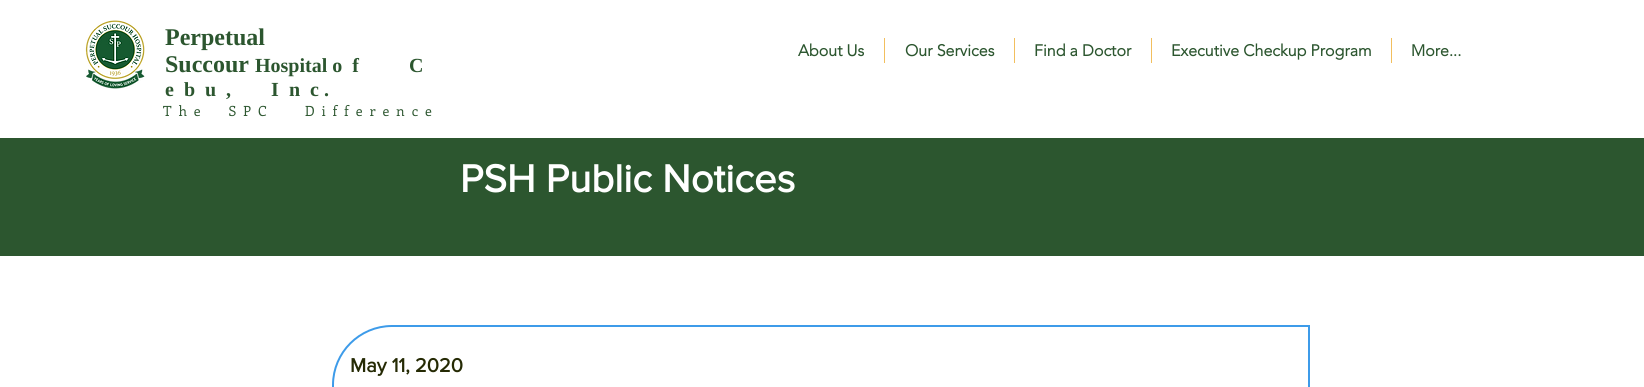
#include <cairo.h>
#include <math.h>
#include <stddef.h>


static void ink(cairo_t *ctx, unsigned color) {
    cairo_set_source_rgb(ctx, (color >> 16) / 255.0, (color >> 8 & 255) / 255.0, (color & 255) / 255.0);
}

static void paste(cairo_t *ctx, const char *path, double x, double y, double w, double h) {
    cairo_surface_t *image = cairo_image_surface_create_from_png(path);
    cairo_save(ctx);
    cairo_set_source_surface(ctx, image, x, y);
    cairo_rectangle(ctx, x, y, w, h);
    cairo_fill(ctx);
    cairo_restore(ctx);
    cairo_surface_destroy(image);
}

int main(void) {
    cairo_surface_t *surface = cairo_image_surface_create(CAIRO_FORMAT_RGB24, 1644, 387);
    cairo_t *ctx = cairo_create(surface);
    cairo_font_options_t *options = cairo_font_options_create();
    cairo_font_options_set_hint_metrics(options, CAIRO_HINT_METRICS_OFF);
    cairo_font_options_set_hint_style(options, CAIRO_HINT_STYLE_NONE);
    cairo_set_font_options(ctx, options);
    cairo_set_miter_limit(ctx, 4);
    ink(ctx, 0xFFFFFF);
    cairo_paint(ctx);
    paste(ctx, "media/1.png", 85, 20, 60, 69);
    cairo_select_font_face(ctx, "Liberation Serif", CAIRO_FONT_SLANT_NORMAL, CAIRO_FONT_WEIGHT_BOLD);
    cairo_set_font_size(ctx, 24);
    ink(ctx, 0x2C562F);
    cairo_move_to(ctx, 165, 45);
    cairo_show_text(ctx, "Perpetual");
    cairo_move_to(ctx, 165, 72);
    cairo_show_text(ctx, "Succour");
    cairo_set_font_size(ctx, 20);
    cairo_move_to(ctx, 255, 72);
    cairo_show_text(ctx, "Hospital o  f          C");
    cairo_move_to(ctx, 165, 96);
    cairo_show_text(ctx, "e  b  u  ,        I  n  c .");
    cairo_select_font_face(ctx, "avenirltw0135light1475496", CAIRO_FONT_SLANT_NORMAL, CAIRO_FONT_WEIGHT_BOLD);
    cairo_set_font_size(ctx, 16);
    cairo_move_to(ctx, 798, 56);
    cairo_show_text(ctx, "About Us");
    ink(ctx, 0xF2BF5E);
    cairo_rectangle(ctx, 884, 38, 1, 25);
    cairo_fill(ctx);
    ink(ctx, 0x2C562F);
    cairo_move_to(ctx, 905, 56);
    cairo_show_text(ctx, "Our Services");
    ink(ctx, 0xF2BF5E);
    cairo_rectangle(ctx, 1014, 38, 1, 25);
    cairo_fill(ctx);
    ink(ctx, 0x2C562F);
    cairo_move_to(ctx, 1034, 56);
    cairo_show_text(ctx, "Find a Doctor");
    ink(ctx, 0xF2BF5E);
    cairo_rectangle(ctx, 1151, 38, 1, 25);
    cairo_fill(ctx);
    ink(ctx, 0x2C562F);
    cairo_move_to(ctx, 1171, 56);
    cairo_show_text(ctx, "Executive Checkup Program");
    ink(ctx, 0xF2BF5E);
    cairo_rectangle(ctx, 1391, 38, 1, 25);
    cairo_fill(ctx);
    ink(ctx, 0x2C562F);
    cairo_move_to(ctx, 1411, 56);
    cairo_show_text(ctx, "More...");
    cairo_select_font_face(ctx, "Enriqueta", CAIRO_FONT_SLANT_NORMAL, CAIRO_FONT_WEIGHT_NORMAL);
    cairo_set_font_size(ctx, 14);
    cairo_move_to(ctx, 163, 116);
    cairo_show_text(ctx, "T  h  e        S  P  C           D  i  f  f  e  r  e  n  c  e");
    cairo_rectangle(ctx, 0, 138, 1644, 118);
    cairo_fill(ctx);
    cairo_select_font_face(ctx, "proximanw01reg", CAIRO_FONT_SLANT_NORMAL, CAIRO_FONT_WEIGHT_BOLD);
    cairo_set_font_size(ctx, 40);
    ink(ctx, 0xFFFFFF);
    cairo_move_to(ctx, 460, 192);
    cairo_show_text(ctx, "PSH Public Notices");
    cairo_new_path(ctx);
    cairo_move_to(ctx, 392, 326);
    cairo_line_to(ctx, 1309, 326);
    cairo_line_to(ctx, 1309, 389);
    cairo_curve_to(ctx, 1309, 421.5, 1282.5, 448, 1250, 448);
    cairo_line_to(ctx, 333, 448);
    cairo_line_to(ctx, 333, 385);
    cairo_curve_to(ctx, 333, 352.5, 359.5, 326, 392, 326);
    cairo_close_path(ctx);
    ink(ctx, 0x3D9BE9);
    cairo_stroke(ctx);
    cairo_set_font_size(ctx, 20);
    ink(ctx, 0x252A04);
    cairo_move_to(ctx, 350, 372);
    cairo_show_text(ctx, "May 11, 2020");
    cairo_surface_write_to_png(surface, "image.png");
    cairo_font_options_destroy(options);
    cairo_destroy(ctx);
    cairo_surface_destroy(surface);
    return 0;
}
